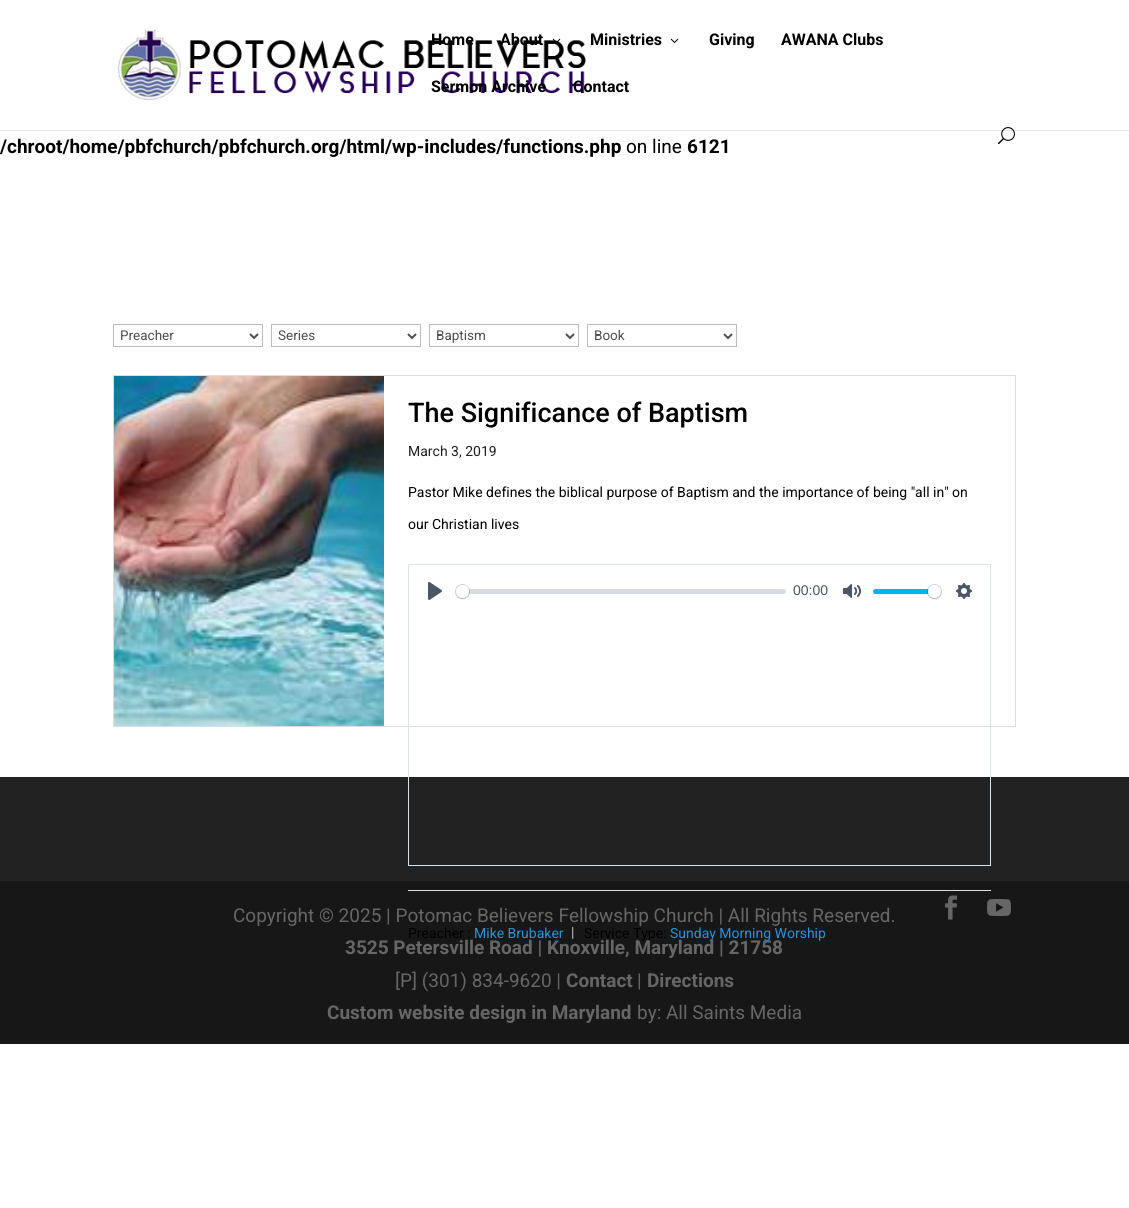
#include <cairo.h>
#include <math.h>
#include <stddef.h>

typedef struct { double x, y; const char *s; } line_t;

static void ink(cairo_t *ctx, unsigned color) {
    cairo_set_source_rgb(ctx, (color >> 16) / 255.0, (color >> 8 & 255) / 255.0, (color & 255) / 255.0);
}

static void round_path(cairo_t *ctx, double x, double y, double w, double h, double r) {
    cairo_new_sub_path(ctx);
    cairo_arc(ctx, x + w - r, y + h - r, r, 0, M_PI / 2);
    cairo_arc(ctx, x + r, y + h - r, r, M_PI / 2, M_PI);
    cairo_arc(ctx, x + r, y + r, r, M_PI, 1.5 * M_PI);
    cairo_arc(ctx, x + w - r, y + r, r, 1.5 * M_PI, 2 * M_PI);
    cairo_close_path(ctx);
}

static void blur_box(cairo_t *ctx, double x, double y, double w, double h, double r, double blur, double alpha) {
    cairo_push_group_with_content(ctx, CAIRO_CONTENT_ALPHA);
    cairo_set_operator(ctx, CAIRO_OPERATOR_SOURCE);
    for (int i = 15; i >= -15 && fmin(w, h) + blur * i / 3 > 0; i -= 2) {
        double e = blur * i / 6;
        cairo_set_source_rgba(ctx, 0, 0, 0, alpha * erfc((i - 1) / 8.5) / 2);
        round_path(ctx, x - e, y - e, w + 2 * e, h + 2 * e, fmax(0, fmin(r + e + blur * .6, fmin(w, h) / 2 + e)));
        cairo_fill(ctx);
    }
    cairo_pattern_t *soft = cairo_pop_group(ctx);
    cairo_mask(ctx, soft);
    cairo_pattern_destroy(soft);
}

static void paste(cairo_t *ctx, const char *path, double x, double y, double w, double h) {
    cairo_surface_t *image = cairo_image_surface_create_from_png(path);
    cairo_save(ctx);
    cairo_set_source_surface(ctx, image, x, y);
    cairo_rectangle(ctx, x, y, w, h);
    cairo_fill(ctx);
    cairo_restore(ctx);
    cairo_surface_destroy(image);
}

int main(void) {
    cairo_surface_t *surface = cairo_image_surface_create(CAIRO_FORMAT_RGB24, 1129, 1208);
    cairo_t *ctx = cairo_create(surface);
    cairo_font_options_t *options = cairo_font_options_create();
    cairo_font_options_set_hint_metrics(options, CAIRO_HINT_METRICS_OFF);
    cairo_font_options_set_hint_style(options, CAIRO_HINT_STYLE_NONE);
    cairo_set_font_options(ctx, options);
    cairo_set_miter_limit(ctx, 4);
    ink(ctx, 0xFFFFFF);
    cairo_paint(ctx);
    ink(ctx, 0xE6E6E6);
    cairo_rectangle(ctx, 0, 130, 1129, 1);
    cairo_fill(ctx);
    paste(ctx, "media/1.png", 118, 30, 468, 70);
    cairo_select_font_face(ctx, "Roboto", CAIRO_FONT_SLANT_NORMAL, CAIRO_FONT_WEIGHT_BOLD);
    cairo_set_font_size(ctx, 16);
    ink(ctx, 0x000000);
    cairo_move_to(ctx, 431, 45);
    cairo_show_text(ctx, "Home");
    cairo_move_to(ctx, 500, 45);
    cairo_show_text(ctx, "About");
    paste(ctx, "media/2.png", 552, 38, 9, 4);
    cairo_move_to(ctx, 590, 45);
    cairo_show_text(ctx, "Ministries");
    paste(ctx, "media/3.png", 670, 38, 9, 5);
    {
        static const line_t items[] = {
            {709, 45, "Giving"},
            {781, 45, "AWANA Clubs"},
            {431, 92, "Sermon Archive"},
            {573, 92, "Contact"},
        };
        for (size_t i = 0; i < sizeof items / sizeof *items; i++) {
            cairo_move_to(ctx, items[i].x, items[i].y);
            cairo_show_text(ctx, items[i].s);
        }
    }
    paste(ctx, "media/4.png", 998, 127, 17, 18);
    cairo_rectangle(ctx, 113.5, 324.5, 149, 22);
    ink(ctx, 0xBBBBBB);
    cairo_set_line_width(ctx, 1);
    cairo_stroke(ctx);
    cairo_new_path(ctx);
    cairo_move_to(ctx, 250, 334);
    cairo_line_to(ctx, 254, 338);
    cairo_line_to(ctx, 258, 334);
    ink(ctx, 0x4E4E4E);
    cairo_set_line_width(ctx, 2);
    cairo_stroke(ctx);
    cairo_select_font_face(ctx, "Roboto", CAIRO_FONT_SLANT_NORMAL, CAIRO_FONT_WEIGHT_NORMAL);
    cairo_set_font_size(ctx, 13.5);
    cairo_move_to(ctx, 120, 340);
    cairo_show_text(ctx, "Preacher");
    cairo_rectangle(ctx, 271.5, 324.5, 149, 22);
    ink(ctx, 0xBBBBBB);
    cairo_set_line_width(ctx, 1);
    cairo_stroke(ctx);
    cairo_new_path(ctx);
    cairo_move_to(ctx, 408, 334);
    cairo_line_to(ctx, 412, 338);
    cairo_line_to(ctx, 416, 334);
    ink(ctx, 0x4E4E4E);
    cairo_set_line_width(ctx, 2);
    cairo_stroke(ctx);
    cairo_move_to(ctx, 278, 340);
    cairo_show_text(ctx, "Series");
    cairo_rectangle(ctx, 429.5, 324.5, 149, 22);
    ink(ctx, 0xBBBBBB);
    cairo_set_line_width(ctx, 1);
    cairo_stroke(ctx);
    cairo_new_path(ctx);
    cairo_move_to(ctx, 566, 334);
    cairo_line_to(ctx, 570, 338);
    cairo_line_to(ctx, 574, 334);
    ink(ctx, 0x4E4E4E);
    cairo_set_line_width(ctx, 2);
    cairo_stroke(ctx);
    cairo_move_to(ctx, 436, 340);
    cairo_show_text(ctx, "Baptism");
    cairo_rectangle(ctx, 587.5, 324.5, 149, 22);
    ink(ctx, 0xBBBBBB);
    cairo_set_line_width(ctx, 1);
    cairo_stroke(ctx);
    cairo_new_path(ctx);
    cairo_move_to(ctx, 724, 334);
    cairo_line_to(ctx, 728, 338);
    cairo_line_to(ctx, 732, 334);
    ink(ctx, 0x4E4E4E);
    cairo_set_line_width(ctx, 2);
    cairo_stroke(ctx);
    cairo_move_to(ctx, 594, 340);
    cairo_show_text(ctx, "Book");
    cairo_rectangle(ctx, 113.5, 375.5, 902, 351);
    ink(ctx, 0xDDDDDD);
    cairo_set_line_width(ctx, 1);
    cairo_stroke(ctx);
    paste(ctx, "media/5.png", 114, 376, 270, 350);
    cairo_select_font_face(ctx, "Roboto Medium", CAIRO_FONT_SLANT_NORMAL, CAIRO_FONT_WEIGHT_NORMAL);
    cairo_set_font_size(ctx, 27);
    ink(ctx, 0x000000);
    cairo_move_to(ctx, 408, 422);
    cairo_show_text(ctx, "The Significance of Baptism");
    cairo_select_font_face(ctx, "Roboto", CAIRO_FONT_SLANT_NORMAL, CAIRO_FONT_WEIGHT_NORMAL);
    cairo_set_font_size(ctx, 14);
    ink(ctx, 0x212121);
    cairo_move_to(ctx, 408, 456);
    cairo_show_text(ctx, "March 3, 2019");
    ink(ctx, 0x000000);
    cairo_move_to(ctx, 408, 497);
    cairo_show_text(ctx, "Pastor Mike defines the biblical purpose of Baptism and the importance of being \"all in\" on");
    cairo_move_to(ctx, 408, 529);
    cairo_show_text(ctx, "our Christian lives");
    ink(ctx, 0x222222);
    cairo_rectangle(ctx, 0, 777, 1129, 104);
    cairo_fill(ctx);
    cairo_rectangle(ctx, 408.5, 564.5, 582, 301);
    ink(ctx, 0xDBE3E8);
    cairo_stroke(ctx);
    paste(ctx, "media/6.png", 428, 582, 14, 18);
    cairo_set_source_rgba(ctx, 0.757, 0.788, 0.82, 0.66);
    round_path(ctx, 456, 589, 330, 5, 2.5);
    cairo_fill(ctx);
    cairo_arc(ctx, 462.5, 591.5, 7, 0, 2 * M_PI);
    cairo_set_source_rgba(ctx, 0.137, 0.161, 0.184, 0.2);
    cairo_stroke(ctx);
    ink(ctx, 0x000000);
    blur_box(ctx, 456, 586, 13, 13, 6.5, 0.5, 0.15);
    ink(ctx, 0xFFFFFF);
    cairo_arc(ctx, 462.5, 591.5, 6.5, 0, 2 * M_PI);
    cairo_fill(ctx);
    cairo_select_font_face(ctx, "Liberation Sans", CAIRO_FONT_SLANT_NORMAL, CAIRO_FONT_WEIGHT_NORMAL);
    ink(ctx, 0x4A5764);
    cairo_move_to(ctx, 793, 595);
    cairo_show_text(ctx, "00:00");
    paste(ctx, "media/7.png", 843, 584, 18, 14);
    ink(ctx, 0x00B3FF);
    round_path(ctx, 873, 589, 68, 5, 2.5);
    cairo_fill(ctx);
    cairo_arc(ctx, 934.5, 591.5, 7, 0, 2 * M_PI);
    cairo_set_source_rgba(ctx, 0.137, 0.161, 0.184, 0.2);
    cairo_stroke(ctx);
    ink(ctx, 0x000000);
    blur_box(ctx, 928, 586, 13, 13, 6.5, 0.5, 0.15);
    ink(ctx, 0xFFFFFF);
    cairo_arc(ctx, 934.5, 591.5, 6.5, 0, 2 * M_PI);
    cairo_fill(ctx);
    paste(ctx, "media/8.png", 956, 583, 16, 16);
    ink(ctx, 0x171717);
    cairo_rectangle(ctx, 0, 881, 1129, 163);
    cairo_fill(ctx);
    ink(ctx, 0xDDDDDD);
    cairo_rectangle(ctx, 408, 890, 583, 1);
    cairo_fill(ctx);
    cairo_select_font_face(ctx, "Roboto", CAIRO_FONT_SLANT_NORMAL, CAIRO_FONT_WEIGHT_NORMAL);
    ink(ctx, 0x000000);
    cairo_move_to(ctx, 408, 938);
    cairo_show_text(ctx, "Preacher :");
    ink(ctx, 0x2B91D6);
    cairo_move_to(ctx, 474, 938);
    cairo_show_text(ctx, "Mike Brubaker");
    ink(ctx, 0xC3C3C3);
    cairo_move_to(ctx, 571, 937);
    cairo_show_text(ctx, "|");
    ink(ctx, 0x000000);
    cairo_move_to(ctx, 584, 938);
    cairo_show_text(ctx, "Service Type:");
    ink(ctx, 0x2B91D6);
    cairo_move_to(ctx, 670, 938);
    cairo_show_text(ctx, "Sunday Morning Worship");
    cairo_set_font_size(ctx, 19);
    ink(ctx, 0x666666);
    cairo_move_to(ctx, 233, 922);
    cairo_show_text(ctx, "Copyright © 2025 | Potomac Believers Fellowship Church | All Rights Reserved.");
    cairo_select_font_face(ctx, "Roboto", CAIRO_FONT_SLANT_NORMAL, CAIRO_FONT_WEIGHT_BOLD);
    cairo_move_to(ctx, 345, 954);
    cairo_show_text(ctx, "3525 Petersville Road | Knoxville, Maryland | 21758");
    cairo_select_font_face(ctx, "Roboto", CAIRO_FONT_SLANT_NORMAL, CAIRO_FONT_WEIGHT_NORMAL);
    cairo_move_to(ctx, 395, 987);
    cairo_show_text(ctx, "[P] (301) 834-9620 |");
    cairo_select_font_face(ctx, "Roboto", CAIRO_FONT_SLANT_NORMAL, CAIRO_FONT_WEIGHT_BOLD);
    cairo_move_to(ctx, 566, 987);
    cairo_show_text(ctx, "Contact");
    cairo_select_font_face(ctx, "Roboto", CAIRO_FONT_SLANT_NORMAL, CAIRO_FONT_WEIGHT_NORMAL);
    cairo_move_to(ctx, 637, 987);
    cairo_show_text(ctx, "|");
    cairo_select_font_face(ctx, "Roboto", CAIRO_FONT_SLANT_NORMAL, CAIRO_FONT_WEIGHT_BOLD);
    cairo_move_to(ctx, 647, 987);
    cairo_show_text(ctx, "Directions");
    cairo_move_to(ctx, 327, 1019);
    cairo_show_text(ctx, "Custom website design in Maryland");
    cairo_select_font_face(ctx, "Roboto", CAIRO_FONT_SLANT_NORMAL, CAIRO_FONT_WEIGHT_NORMAL);
    cairo_move_to(ctx, 637, 1019);
    cairo_show_text(ctx, "by: All Saints Media");
    paste(ctx, "media/9.png", 945, 895, 12, 25);
    paste(ctx, "media/10.png", 987, 899, 24, 17);
    cairo_select_font_face(ctx, "Roboto", CAIRO_FONT_SLANT_NORMAL, CAIRO_FONT_WEIGHT_BOLD);
    ink(ctx, 0x000000);
    cairo_move_to(ctx, 0, 153);
    cairo_show_text(ctx, "/chroot/home/pbfchurch/pbfchurch.org/html/wp-includes/functions.php");
    cairo_select_font_face(ctx, "Roboto", CAIRO_FONT_SLANT_NORMAL, CAIRO_FONT_WEIGHT_NORMAL);
    cairo_move_to(ctx, 626, 153);
    cairo_show_text(ctx, "on line");
    cairo_select_font_face(ctx, "Roboto", CAIRO_FONT_SLANT_NORMAL, CAIRO_FONT_WEIGHT_BOLD);
    cairo_move_to(ctx, 687, 153);
    cairo_show_text(ctx, "6121");
    cairo_surface_write_to_png(surface, "image.png");
    cairo_font_options_destroy(options);
    cairo_destroy(ctx);
    cairo_surface_destroy(surface);
    return 0;
}
